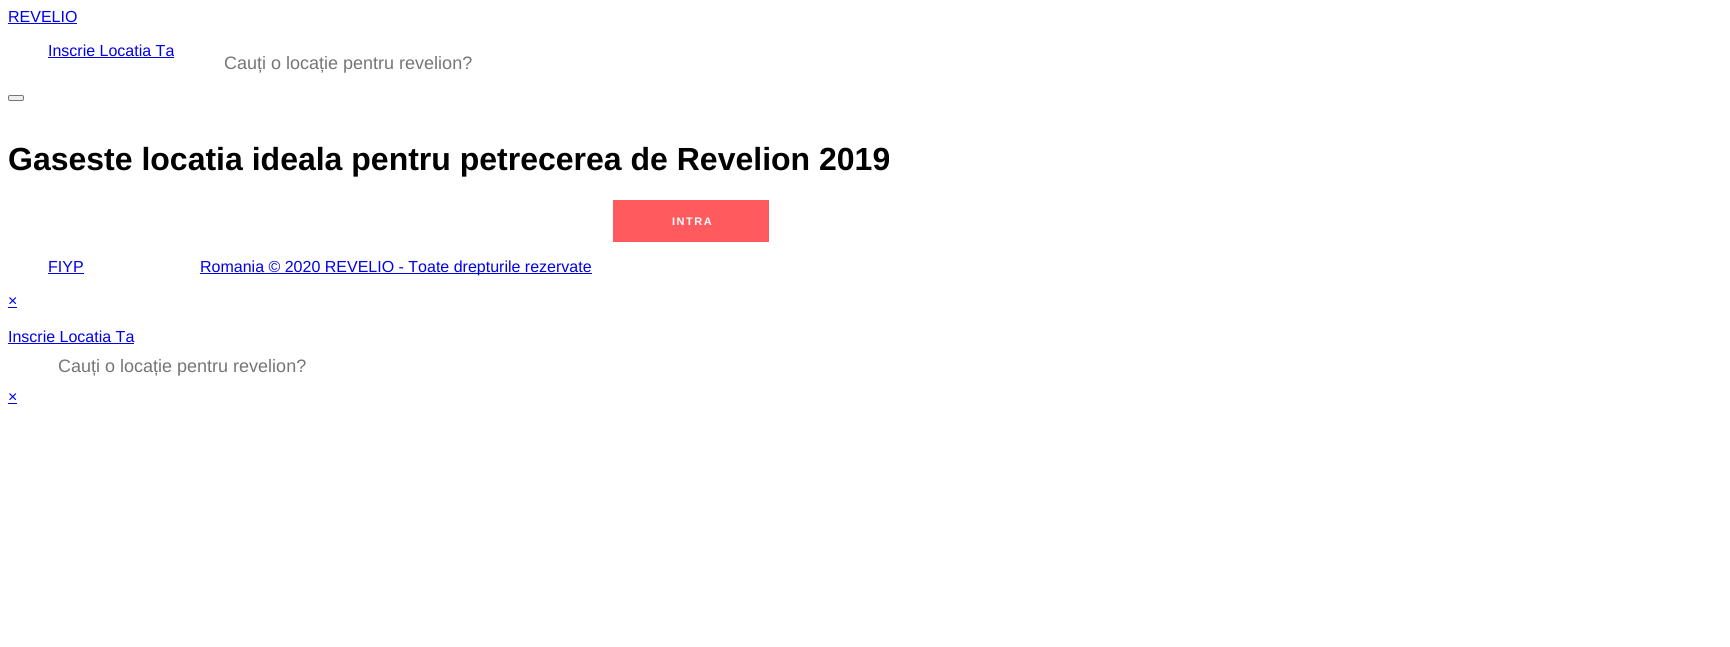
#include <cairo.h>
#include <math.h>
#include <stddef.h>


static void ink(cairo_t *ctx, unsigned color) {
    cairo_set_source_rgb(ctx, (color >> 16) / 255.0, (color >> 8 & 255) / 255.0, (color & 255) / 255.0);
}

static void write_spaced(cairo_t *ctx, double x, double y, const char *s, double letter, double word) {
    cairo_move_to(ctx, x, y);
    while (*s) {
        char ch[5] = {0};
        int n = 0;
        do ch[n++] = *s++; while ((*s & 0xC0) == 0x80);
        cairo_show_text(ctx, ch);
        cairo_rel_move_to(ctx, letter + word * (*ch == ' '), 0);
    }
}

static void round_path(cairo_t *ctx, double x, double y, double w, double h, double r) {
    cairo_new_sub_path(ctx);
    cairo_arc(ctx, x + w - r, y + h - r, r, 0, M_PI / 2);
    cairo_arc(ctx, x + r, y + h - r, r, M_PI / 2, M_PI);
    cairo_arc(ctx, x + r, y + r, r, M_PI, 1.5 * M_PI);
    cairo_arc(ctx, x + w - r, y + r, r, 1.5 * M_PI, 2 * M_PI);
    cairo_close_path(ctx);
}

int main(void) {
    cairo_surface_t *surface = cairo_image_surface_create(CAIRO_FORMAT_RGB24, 1730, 647);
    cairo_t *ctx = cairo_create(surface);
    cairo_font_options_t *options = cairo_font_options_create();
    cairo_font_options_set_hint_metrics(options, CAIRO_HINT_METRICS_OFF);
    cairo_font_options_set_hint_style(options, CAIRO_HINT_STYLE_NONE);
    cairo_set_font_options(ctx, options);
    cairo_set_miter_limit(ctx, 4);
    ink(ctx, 0xFFFFFF);
    cairo_paint(ctx);
    cairo_select_font_face(ctx, "Liberation Sans", CAIRO_FONT_SLANT_NORMAL, CAIRO_FONT_WEIGHT_NORMAL);
    cairo_set_font_size(ctx, 16);
    ink(ctx, 0x0000EE);
    cairo_move_to(ctx, 8, 22);
    cairo_show_text(ctx, "REVELIO");
    cairo_rectangle(ctx, 8, 23, 69, 1);
    cairo_fill(ctx);
    cairo_move_to(ctx, 48, 56);
    cairo_show_text(ctx, "Inscrie Locatia Ta");
    cairo_rectangle(ctx, 48, 57, 126, 1);
    cairo_fill(ctx);
    ink(ctx, 0xFFFFFF);
    round_path(ctx, 174, 42, 532, 42, 1);
    cairo_fill(ctx);
    cairo_set_font_size(ctx, 18);
    ink(ctx, 0x757575);
    cairo_move_to(ctx, 224, 69);
    cairo_show_text(ctx, "Cauți o locație pentru revelion?");
    ink(ctx, 0xEFEFEF);
    round_path(ctx, 8.5, 95.5, 15, 5, 1.5);
    cairo_fill_preserve(ctx);
    ink(ctx, 0x767676);
    cairo_set_line_width(ctx, 1);
    cairo_stroke(ctx);
    cairo_select_font_face(ctx, "Liberation Sans", CAIRO_FONT_SLANT_NORMAL, CAIRO_FONT_WEIGHT_BOLD);
    cairo_set_font_size(ctx, 32);
    ink(ctx, 0x000000);
    cairo_move_to(ctx, 8, 170);
    cairo_show_text(ctx, "Gaseste locatia ideala pentru petrecerea de Revelion 2019");
    ink(ctx, 0xFF5A5E);
    cairo_rectangle(ctx, 613, 200, 156, 42);
    cairo_fill(ctx);
    cairo_set_font_size(ctx, 11);
    ink(ctx, 0xFFFFFF);
    write_spaced(ctx, 672, 225, "INTRA", 1.5, 0);
    cairo_select_font_face(ctx, "Liberation Sans", CAIRO_FONT_SLANT_NORMAL, CAIRO_FONT_WEIGHT_NORMAL);
    cairo_set_font_size(ctx, 16);
    ink(ctx, 0x0000EE);
    cairo_move_to(ctx, 48, 272);
    cairo_show_text(ctx, "FIYP");
    cairo_rectangle(ctx, 48, 273, 36, 1);
    cairo_fill(ctx);
    cairo_rectangle(ctx, 200, 273, 392, 1);
    cairo_fill(ctx);
    cairo_move_to(ctx, 200, 272);
    cairo_show_text(ctx, "Romania © 2020 REVELIO - Toate drepturile rezervate");
    cairo_move_to(ctx, 8, 306);
    cairo_show_text(ctx, "×");
    cairo_rectangle(ctx, 8, 307, 9, 1);
    cairo_fill(ctx);
    cairo_move_to(ctx, 8, 342);
    cairo_show_text(ctx, "Inscrie Locatia Ta");
    cairo_rectangle(ctx, 8, 343, 126, 1);
    cairo_fill(ctx);
    cairo_set_font_size(ctx, 18);
    ink(ctx, 0x757575);
    cairo_move_to(ctx, 58, 372);
    cairo_show_text(ctx, "Cauți o locație pentru revelion?");
    cairo_set_font_size(ctx, 16);
    ink(ctx, 0x0000EE);
    cairo_move_to(ctx, 8, 402);
    cairo_show_text(ctx, "×");
    cairo_rectangle(ctx, 8, 403, 9, 1);
    cairo_fill(ctx);
    cairo_surface_write_to_png(surface, "image.png");
    cairo_font_options_destroy(options);
    cairo_destroy(ctx);
    cairo_surface_destroy(surface);
    return 0;
}
